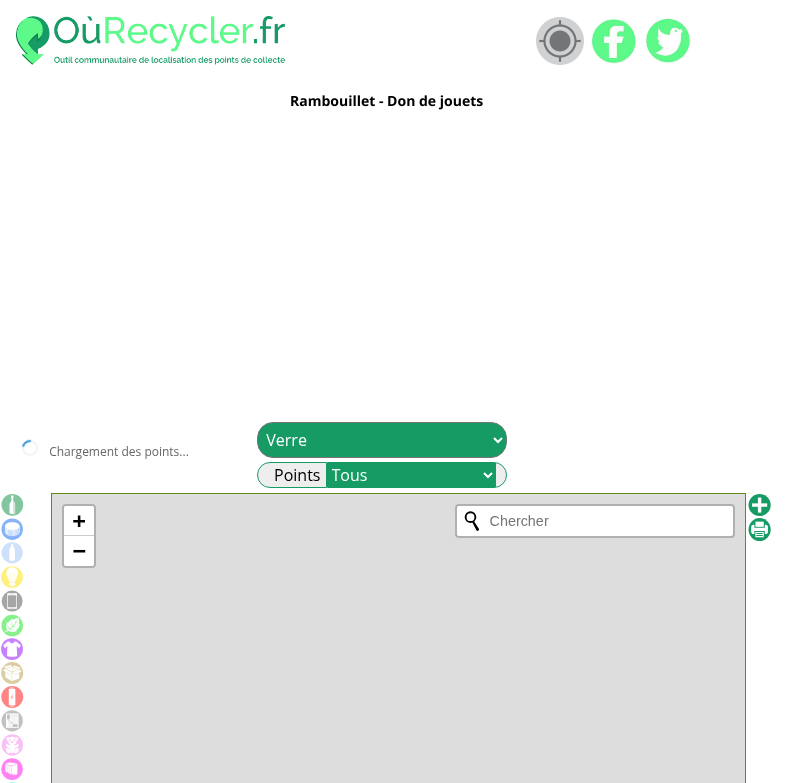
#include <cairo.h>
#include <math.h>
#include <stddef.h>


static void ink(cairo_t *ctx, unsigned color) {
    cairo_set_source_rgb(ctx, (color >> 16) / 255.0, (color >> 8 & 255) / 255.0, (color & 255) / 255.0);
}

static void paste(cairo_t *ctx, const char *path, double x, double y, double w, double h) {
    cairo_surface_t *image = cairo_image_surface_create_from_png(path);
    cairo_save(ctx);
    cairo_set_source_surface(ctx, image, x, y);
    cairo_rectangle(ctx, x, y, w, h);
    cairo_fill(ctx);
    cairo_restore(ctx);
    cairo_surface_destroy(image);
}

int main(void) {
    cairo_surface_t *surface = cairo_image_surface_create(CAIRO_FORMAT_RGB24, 793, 783);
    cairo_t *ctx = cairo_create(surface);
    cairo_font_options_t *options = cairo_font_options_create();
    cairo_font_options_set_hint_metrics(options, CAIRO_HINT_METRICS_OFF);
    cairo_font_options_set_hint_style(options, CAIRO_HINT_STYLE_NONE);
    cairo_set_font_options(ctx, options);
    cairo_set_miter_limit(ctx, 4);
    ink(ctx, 0xFFFFFF);
    cairo_paint(ctx);
    paste(ctx, "media/1.png", 16, 16, 270, 49);
    paste(ctx, "media/2.png", 536, 17, 48, 48);
    paste(ctx, "media/3.png", 591, 18, 46, 46);
    paste(ctx, "media/4.png", 645, 18, 46, 46);
    cairo_select_font_face(ctx, "Open Sans", CAIRO_FONT_SLANT_NORMAL, CAIRO_FONT_WEIGHT_BOLD);
    cairo_set_font_size(ctx, 14);
    ink(ctx, 0x000000);
    cairo_move_to(ctx, 290, 106);
    cairo_show_text(ctx, "Rambouillet - Don de jouets");
    paste(ctx, "media/5.png", 1, 422, 770, 361);
    cairo_surface_write_to_png(surface, "image.png");
    cairo_font_options_destroy(options);
    cairo_destroy(ctx);
    cairo_surface_destroy(surface);
    return 0;
}
